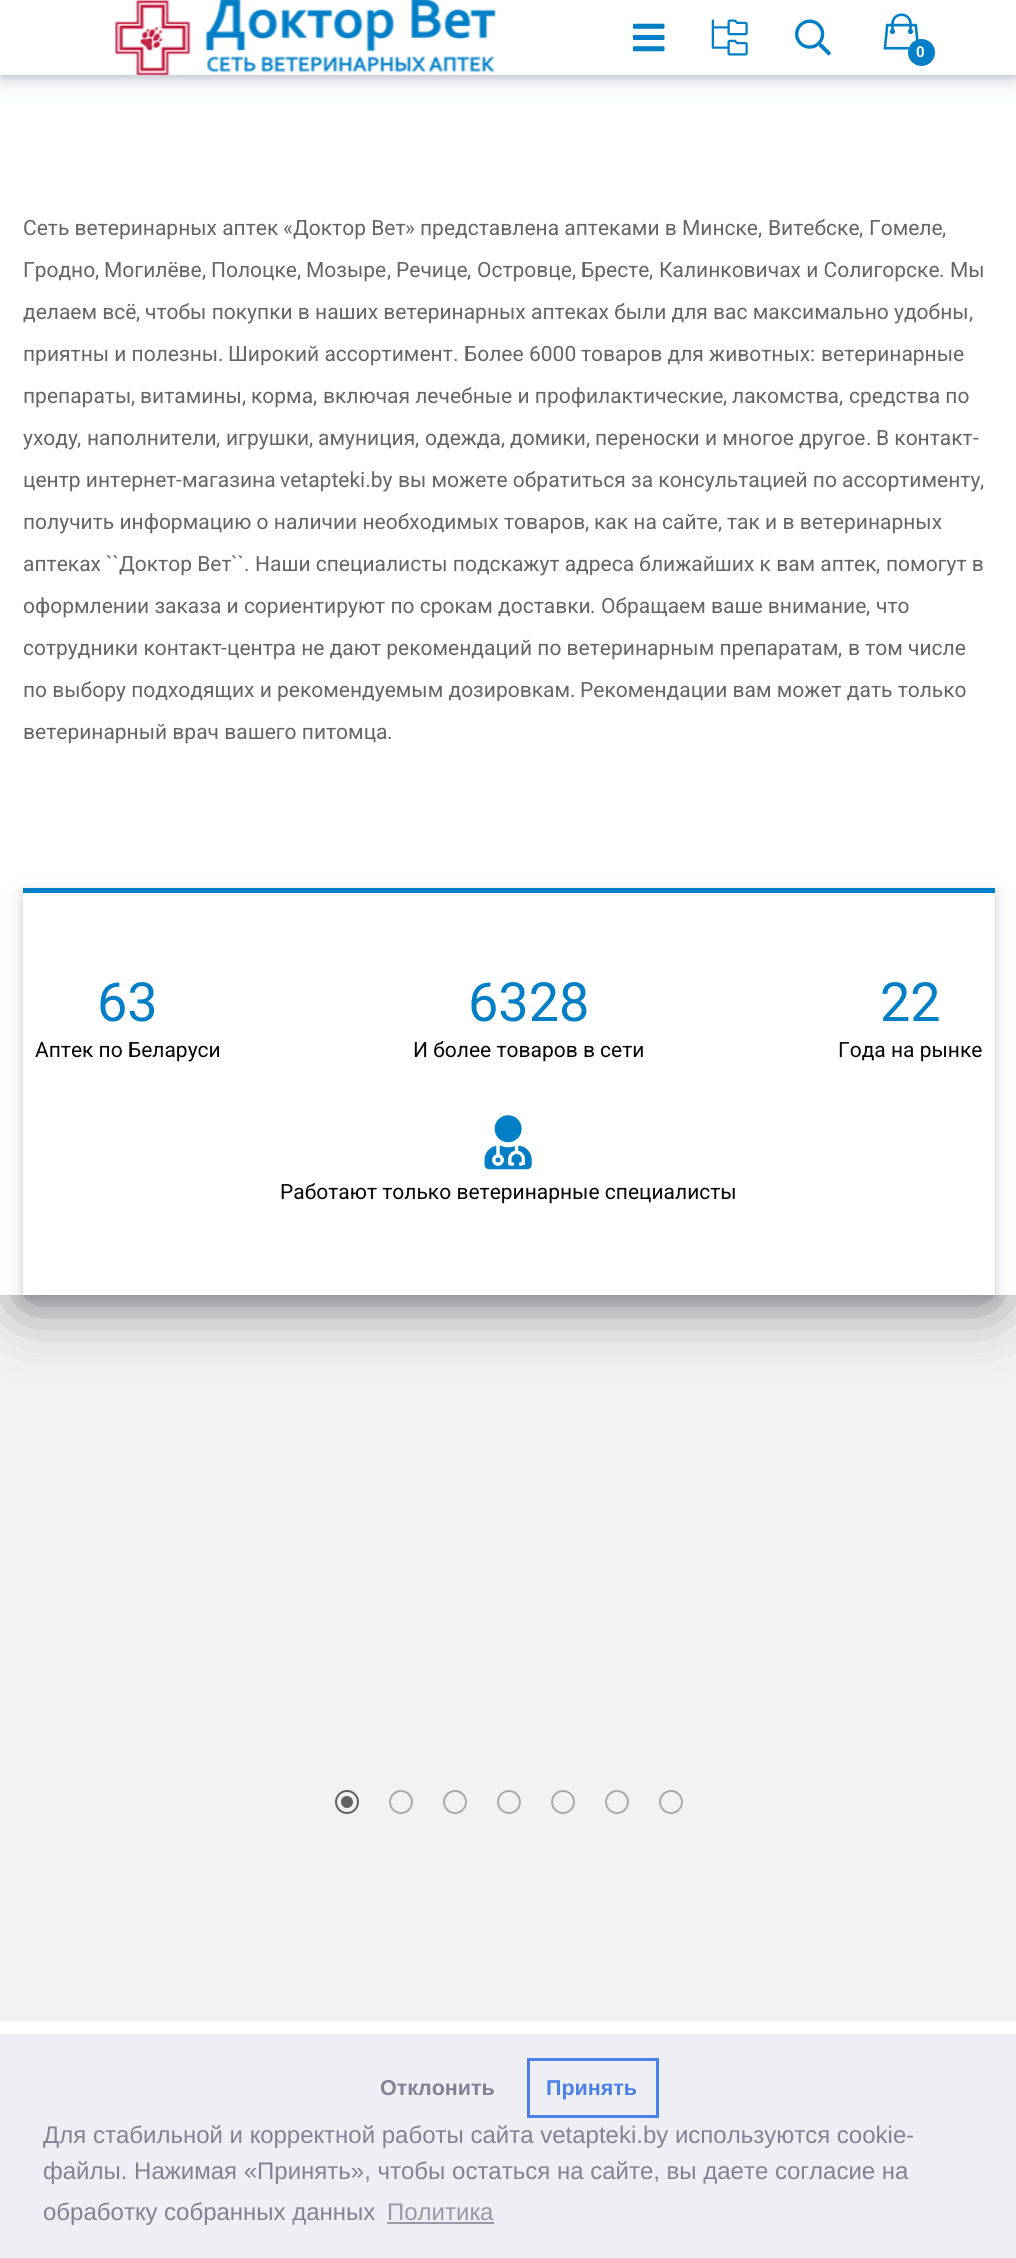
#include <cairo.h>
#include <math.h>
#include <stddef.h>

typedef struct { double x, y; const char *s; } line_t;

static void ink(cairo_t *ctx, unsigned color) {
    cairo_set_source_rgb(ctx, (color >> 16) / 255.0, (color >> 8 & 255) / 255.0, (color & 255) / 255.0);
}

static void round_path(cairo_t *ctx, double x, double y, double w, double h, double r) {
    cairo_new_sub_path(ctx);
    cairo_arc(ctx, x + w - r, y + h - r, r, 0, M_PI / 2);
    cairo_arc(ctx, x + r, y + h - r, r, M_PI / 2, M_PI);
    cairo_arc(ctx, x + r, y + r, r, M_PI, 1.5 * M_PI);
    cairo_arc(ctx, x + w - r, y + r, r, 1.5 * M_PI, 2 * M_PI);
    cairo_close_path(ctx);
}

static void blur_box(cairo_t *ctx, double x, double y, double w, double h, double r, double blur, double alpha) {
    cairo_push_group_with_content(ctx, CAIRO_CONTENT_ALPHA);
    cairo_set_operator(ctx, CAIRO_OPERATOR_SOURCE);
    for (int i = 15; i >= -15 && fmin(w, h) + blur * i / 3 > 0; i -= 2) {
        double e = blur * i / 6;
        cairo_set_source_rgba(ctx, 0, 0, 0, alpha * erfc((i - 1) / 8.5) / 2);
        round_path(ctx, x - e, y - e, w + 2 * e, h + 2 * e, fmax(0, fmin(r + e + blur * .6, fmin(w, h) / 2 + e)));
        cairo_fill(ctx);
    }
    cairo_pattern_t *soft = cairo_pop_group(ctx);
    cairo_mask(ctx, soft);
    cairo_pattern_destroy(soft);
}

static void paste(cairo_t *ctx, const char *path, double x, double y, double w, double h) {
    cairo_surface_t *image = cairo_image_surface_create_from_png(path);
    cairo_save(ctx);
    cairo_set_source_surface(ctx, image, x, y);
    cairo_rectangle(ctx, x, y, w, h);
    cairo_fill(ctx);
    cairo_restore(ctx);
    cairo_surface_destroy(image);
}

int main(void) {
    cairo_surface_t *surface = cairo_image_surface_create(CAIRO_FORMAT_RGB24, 1016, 2258);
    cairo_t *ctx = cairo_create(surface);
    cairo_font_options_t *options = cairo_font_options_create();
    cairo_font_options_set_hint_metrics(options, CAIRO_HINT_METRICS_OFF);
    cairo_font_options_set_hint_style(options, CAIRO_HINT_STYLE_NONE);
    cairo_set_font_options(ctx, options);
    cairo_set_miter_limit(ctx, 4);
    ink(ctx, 0xFFFFFF);
    cairo_paint(ctx);
    ink(ctx, 0xF2F2F2);
    cairo_rectangle(ctx, 0, 1295, 1016, 726);
    cairo_fill(ctx);
    ink(ctx, 0x000000);
    blur_box(ctx, 24, -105, 969, 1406, 0, 35, 0.5);
    ink(ctx, 0xFFFFFF);
    cairo_rectangle(ctx, 0, 75, 1016, 1220);
    cairo_fill(ctx);
    ink(ctx, 0x5D6494);
    blur_box(ctx, 0, 3, 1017, 75, 0, 3, 0.2);
    ink(ctx, 0x252C61);
    blur_box(ctx, 0, 8, 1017, 75, 0, 11, 0.15);
    ink(ctx, 0xFFFFFF);
    cairo_rectangle(ctx, 0, 0, 1016, 75);
    cairo_fill(ctx);
    paste(ctx, "media/1.png", 115, 0, 381, 75);
    paste(ctx, "media/2.png", 633, 23, 32, 29);
    paste(ctx, "media/3.png", 711, 19, 37, 37);
    paste(ctx, "media/4.png", 795, 19, 36, 37);
    paste(ctx, "media/5.png", 883, 13, 36, 37);
    ink(ctx, 0x007FC7);
    cairo_arc(ctx, 921.5, 52.5, 13.5, 0, 2 * M_PI);
    cairo_fill(ctx);
    cairo_select_font_face(ctx, "Roboto", CAIRO_FONT_SLANT_NORMAL, CAIRO_FONT_WEIGHT_BOLD);
    cairo_set_font_size(ctx, 15);
    ink(ctx, 0xFFFFFF);
    cairo_move_to(ctx, 916, 57);
    cairo_show_text(ctx, "0");
    cairo_select_font_face(ctx, "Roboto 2", CAIRO_FONT_SLANT_NORMAL, CAIRO_FONT_WEIGHT_NORMAL);
    cairo_set_font_size(ctx, 21);
    ink(ctx, 0x666666);
    cairo_move_to(ctx, 23, 235);
    cairo_show_text(ctx, "Сеть ветеринарных аптек");
    cairo_select_font_face(ctx, "Roboto", CAIRO_FONT_SLANT_NORMAL, CAIRO_FONT_WEIGHT_NORMAL);
    cairo_move_to(ctx, 283, 235);
    cairo_show_text(ctx, "«");
    cairo_select_font_face(ctx, "Roboto 2", CAIRO_FONT_SLANT_NORMAL, CAIRO_FONT_WEIGHT_NORMAL);
    cairo_move_to(ctx, 293, 235);
    cairo_show_text(ctx, "Доктор Вет");
    cairo_select_font_face(ctx, "Roboto", CAIRO_FONT_SLANT_NORMAL, CAIRO_FONT_WEIGHT_NORMAL);
    cairo_move_to(ctx, 405, 235);
    cairo_show_text(ctx, "»");
    cairo_select_font_face(ctx, "Roboto 2", CAIRO_FONT_SLANT_NORMAL, CAIRO_FONT_WEIGHT_NORMAL);
    {
        static const line_t items[] = {
            {420, 235, "представлена аптеками в Минске"},
            {768, 235, "Витебске"},
            {869, 235, "Гомеле"},
        };
        for (size_t i = 0; i < sizeof items / sizeof *items; i++) {
            cairo_move_to(ctx, items[i].x, items[i].y);
            cairo_show_text(ctx, items[i].s);
        }
    }
    cairo_select_font_face(ctx, "Roboto", CAIRO_FONT_SLANT_NORMAL, CAIRO_FONT_WEIGHT_NORMAL);
    {
        static const line_t items[] = {
            {758, 235, ","},
            {859, 235, ","},
            {942, 235, ","},
        };
        for (size_t i = 0; i < sizeof items / sizeof *items; i++) {
            cairo_move_to(ctx, items[i].x, items[i].y);
            cairo_show_text(ctx, items[i].s);
        }
    }
    cairo_select_font_face(ctx, "Roboto 2", CAIRO_FONT_SLANT_NORMAL, CAIRO_FONT_WEIGHT_NORMAL);
    cairo_move_to(ctx, 23, 277);
    cairo_show_text(ctx, "Гродно");
    cairo_select_font_face(ctx, "Roboto", CAIRO_FONT_SLANT_NORMAL, CAIRO_FONT_WEIGHT_NORMAL);
    cairo_move_to(ctx, 95, 277);
    cairo_show_text(ctx, ",");
    cairo_select_font_face(ctx, "Roboto 2", CAIRO_FONT_SLANT_NORMAL, CAIRO_FONT_WEIGHT_NORMAL);
    cairo_move_to(ctx, 104, 277);
    cairo_show_text(ctx, "Могилёве");
    cairo_select_font_face(ctx, "Roboto", CAIRO_FONT_SLANT_NORMAL, CAIRO_FONT_WEIGHT_NORMAL);
    cairo_move_to(ctx, 202, 277);
    cairo_show_text(ctx, ",");
    cairo_select_font_face(ctx, "Roboto 2", CAIRO_FONT_SLANT_NORMAL, CAIRO_FONT_WEIGHT_NORMAL);
    cairo_move_to(ctx, 211, 277);
    cairo_show_text(ctx, "Полоцке");
    cairo_select_font_face(ctx, "Roboto", CAIRO_FONT_SLANT_NORMAL, CAIRO_FONT_WEIGHT_NORMAL);
    cairo_move_to(ctx, 297, 277);
    cairo_show_text(ctx, ",");
    cairo_select_font_face(ctx, "Roboto 2", CAIRO_FONT_SLANT_NORMAL, CAIRO_FONT_WEIGHT_NORMAL);
    cairo_move_to(ctx, 306, 277);
    cairo_show_text(ctx, "Мозыре");
    cairo_select_font_face(ctx, "Roboto", CAIRO_FONT_SLANT_NORMAL, CAIRO_FONT_WEIGHT_NORMAL);
    cairo_move_to(ctx, 387, 277);
    cairo_show_text(ctx, ",");
    cairo_select_font_face(ctx, "Roboto 2", CAIRO_FONT_SLANT_NORMAL, CAIRO_FONT_WEIGHT_NORMAL);
    cairo_move_to(ctx, 396, 277);
    cairo_show_text(ctx, "Речице");
    cairo_select_font_face(ctx, "Roboto", CAIRO_FONT_SLANT_NORMAL, CAIRO_FONT_WEIGHT_NORMAL);
    cairo_move_to(ctx, 467, 277);
    cairo_show_text(ctx, ",");
    cairo_select_font_face(ctx, "Roboto 2", CAIRO_FONT_SLANT_NORMAL, CAIRO_FONT_WEIGHT_NORMAL);
    cairo_move_to(ctx, 477, 277);
    cairo_show_text(ctx, "Островце");
    cairo_select_font_face(ctx, "Roboto", CAIRO_FONT_SLANT_NORMAL, CAIRO_FONT_WEIGHT_NORMAL);
    cairo_move_to(ctx, 572, 277);
    cairo_show_text(ctx, ",");
    cairo_select_font_face(ctx, "Roboto 2", CAIRO_FONT_SLANT_NORMAL, CAIRO_FONT_WEIGHT_NORMAL);
    cairo_move_to(ctx, 581, 277);
    cairo_show_text(ctx, "Бресте");
    cairo_select_font_face(ctx, "Roboto", CAIRO_FONT_SLANT_NORMAL, CAIRO_FONT_WEIGHT_NORMAL);
    cairo_move_to(ctx, 649, 277);
    cairo_show_text(ctx, ",");
    cairo_select_font_face(ctx, "Roboto 2", CAIRO_FONT_SLANT_NORMAL, CAIRO_FONT_WEIGHT_NORMAL);
    cairo_move_to(ctx, 659, 277);
    cairo_show_text(ctx, "Калинковичах и Солигорске");
    cairo_select_font_face(ctx, "Roboto", CAIRO_FONT_SLANT_NORMAL, CAIRO_FONT_WEIGHT_NORMAL);
    cairo_move_to(ctx, 939, 277);
    cairo_show_text(ctx, ".");
    cairo_select_font_face(ctx, "Roboto 2", CAIRO_FONT_SLANT_NORMAL, CAIRO_FONT_WEIGHT_NORMAL);
    cairo_move_to(ctx, 950, 277);
    cairo_show_text(ctx, "Мы");
    cairo_move_to(ctx, 23, 319);
    cairo_show_text(ctx, "делаем всё");
    cairo_select_font_face(ctx, "Roboto", CAIRO_FONT_SLANT_NORMAL, CAIRO_FONT_WEIGHT_NORMAL);
    cairo_move_to(ctx, 136, 319);
    cairo_show_text(ctx, ",");
    cairo_select_font_face(ctx, "Roboto 2", CAIRO_FONT_SLANT_NORMAL, CAIRO_FONT_WEIGHT_NORMAL);
    cairo_move_to(ctx, 145, 319);
    cairo_show_text(ctx, "чтобы покупки в наших ветеринарных аптеках были для вас максимально удобны");
    cairo_select_font_face(ctx, "Roboto", CAIRO_FONT_SLANT_NORMAL, CAIRO_FONT_WEIGHT_NORMAL);
    cairo_move_to(ctx, 969, 319);
    cairo_show_text(ctx, ",");
    cairo_select_font_face(ctx, "Roboto 2", CAIRO_FONT_SLANT_NORMAL, CAIRO_FONT_WEIGHT_NORMAL);
    cairo_move_to(ctx, 23, 361);
    cairo_show_text(ctx, "приятны и полезны");
    cairo_select_font_face(ctx, "Roboto", CAIRO_FONT_SLANT_NORMAL, CAIRO_FONT_WEIGHT_NORMAL);
    cairo_move_to(ctx, 218, 361);
    cairo_show_text(ctx, ".");
    cairo_select_font_face(ctx, "Roboto 2", CAIRO_FONT_SLANT_NORMAL, CAIRO_FONT_WEIGHT_NORMAL);
    cairo_move_to(ctx, 228, 361);
    cairo_show_text(ctx, "Широкий ассортимент");
    cairo_select_font_face(ctx, "Roboto", CAIRO_FONT_SLANT_NORMAL, CAIRO_FONT_WEIGHT_NORMAL);
    cairo_move_to(ctx, 453, 361);
    cairo_show_text(ctx, ".");
    cairo_select_font_face(ctx, "Roboto 2", CAIRO_FONT_SLANT_NORMAL, CAIRO_FONT_WEIGHT_NORMAL);
    cairo_move_to(ctx, 464, 361);
    cairo_show_text(ctx, "Более");
    cairo_select_font_face(ctx, "Roboto", CAIRO_FONT_SLANT_NORMAL, CAIRO_FONT_WEIGHT_NORMAL);
    cairo_move_to(ctx, 529, 361);
    cairo_show_text(ctx, "6000");
    cairo_select_font_face(ctx, "Roboto 2", CAIRO_FONT_SLANT_NORMAL, CAIRO_FONT_WEIGHT_NORMAL);
    cairo_move_to(ctx, 581, 361);
    cairo_show_text(ctx, "товаров для животных");
    cairo_select_font_face(ctx, "Roboto", CAIRO_FONT_SLANT_NORMAL, CAIRO_FONT_WEIGHT_NORMAL);
    cairo_move_to(ctx, 810, 361);
    cairo_show_text(ctx, ":");
    cairo_select_font_face(ctx, "Roboto 2", CAIRO_FONT_SLANT_NORMAL, CAIRO_FONT_WEIGHT_NORMAL);
    cairo_move_to(ctx, 821, 361);
    cairo_show_text(ctx, "ветеринарные");
    cairo_move_to(ctx, 23, 403);
    cairo_show_text(ctx, "препараты");
    cairo_select_font_face(ctx, "Roboto", CAIRO_FONT_SLANT_NORMAL, CAIRO_FONT_WEIGHT_NORMAL);
    cairo_move_to(ctx, 131, 403);
    cairo_show_text(ctx, ",");
    cairo_select_font_face(ctx, "Roboto 2", CAIRO_FONT_SLANT_NORMAL, CAIRO_FONT_WEIGHT_NORMAL);
    cairo_move_to(ctx, 140, 403);
    cairo_show_text(ctx, "витамины");
    cairo_select_font_face(ctx, "Roboto", CAIRO_FONT_SLANT_NORMAL, CAIRO_FONT_WEIGHT_NORMAL);
    cairo_move_to(ctx, 242, 403);
    cairo_show_text(ctx, ",");
    cairo_select_font_face(ctx, "Roboto 2", CAIRO_FONT_SLANT_NORMAL, CAIRO_FONT_WEIGHT_NORMAL);
    cairo_move_to(ctx, 251, 403);
    cairo_show_text(ctx, "корма");
    cairo_select_font_face(ctx, "Roboto", CAIRO_FONT_SLANT_NORMAL, CAIRO_FONT_WEIGHT_NORMAL);
    cairo_move_to(ctx, 313, 403);
    cairo_show_text(ctx, ",");
    cairo_select_font_face(ctx, "Roboto 2", CAIRO_FONT_SLANT_NORMAL, CAIRO_FONT_WEIGHT_NORMAL);
    cairo_move_to(ctx, 323, 403);
    cairo_show_text(ctx, "включая лечебные и профилактические");
    cairo_select_font_face(ctx, "Roboto", CAIRO_FONT_SLANT_NORMAL, CAIRO_FONT_WEIGHT_NORMAL);
    cairo_move_to(ctx, 723, 403);
    cairo_show_text(ctx, ",");
    cairo_select_font_face(ctx, "Roboto 2", CAIRO_FONT_SLANT_NORMAL, CAIRO_FONT_WEIGHT_NORMAL);
    cairo_move_to(ctx, 732, 403);
    cairo_show_text(ctx, "лакомства");
    cairo_select_font_face(ctx, "Roboto", CAIRO_FONT_SLANT_NORMAL, CAIRO_FONT_WEIGHT_NORMAL);
    cairo_move_to(ctx, 839, 403);
    cairo_show_text(ctx, ",");
    cairo_select_font_face(ctx, "Roboto 2", CAIRO_FONT_SLANT_NORMAL, CAIRO_FONT_WEIGHT_NORMAL);
    {
        static const line_t items[] = {
            {849, 403, "средства по"},
            {23, 445, "уходу"},
            {87, 445, "наполнители"},
            {226, 445, "игрушки"},
            {318, 445, "амуниция"},
            {425, 445, "одежда"},
            {510, 445, "домики"},
            {595, 445, "переноски и многое другое"},
            {876, 445, "В контакт"},
        };
        for (size_t i = 0; i < sizeof items / sizeof *items; i++) {
            cairo_move_to(ctx, items[i].x, items[i].y);
            cairo_show_text(ctx, items[i].s);
        }
    }
    cairo_select_font_face(ctx, "Roboto", CAIRO_FONT_SLANT_NORMAL, CAIRO_FONT_WEIGHT_NORMAL);
    {
        static const line_t items[] = {
            {973, 445, "-"},
            {77, 445, ","},
            {216, 445, ","},
            {309, 445, ","},
            {415, 445, ","},
            {501, 445, ","},
            {586, 445, ","},
            {866, 445, "."},
        };
        for (size_t i = 0; i < sizeof items / sizeof *items; i++) {
            cairo_move_to(ctx, items[i].x, items[i].y);
            cairo_show_text(ctx, items[i].s);
        }
    }
    cairo_select_font_face(ctx, "Roboto 2", CAIRO_FONT_SLANT_NORMAL, CAIRO_FONT_WEIGHT_NORMAL);
    cairo_move_to(ctx, 23, 487);
    cairo_show_text(ctx, "центр интернет");
    cairo_select_font_face(ctx, "Roboto", CAIRO_FONT_SLANT_NORMAL, CAIRO_FONT_WEIGHT_NORMAL);
    cairo_move_to(ctx, 176, 487);
    cairo_show_text(ctx, "-");
    cairo_select_font_face(ctx, "Roboto 2", CAIRO_FONT_SLANT_NORMAL, CAIRO_FONT_WEIGHT_NORMAL);
    cairo_move_to(ctx, 182, 487);
    cairo_show_text(ctx, "магазина");
    cairo_select_font_face(ctx, "Roboto", CAIRO_FONT_SLANT_NORMAL, CAIRO_FONT_WEIGHT_NORMAL);
    cairo_move_to(ctx, 280, 487);
    cairo_show_text(ctx, "vetapteki.by");
    cairo_select_font_face(ctx, "Roboto 2", CAIRO_FONT_SLANT_NORMAL, CAIRO_FONT_WEIGHT_NORMAL);
    cairo_move_to(ctx, 398, 487);
    cairo_show_text(ctx, "вы можете обратиться за консультацией по ассортименту");
    cairo_select_font_face(ctx, "Roboto", CAIRO_FONT_SLANT_NORMAL, CAIRO_FONT_WEIGHT_NORMAL);
    cairo_move_to(ctx, 980, 487);
    cairo_show_text(ctx, ",");
    cairo_select_font_face(ctx, "Roboto 2", CAIRO_FONT_SLANT_NORMAL, CAIRO_FONT_WEIGHT_NORMAL);
    cairo_move_to(ctx, 23, 529);
    cairo_show_text(ctx, "получить информацию о наличии необходимых товаров");
    cairo_select_font_face(ctx, "Roboto", CAIRO_FONT_SLANT_NORMAL, CAIRO_FONT_WEIGHT_NORMAL);
    cairo_move_to(ctx, 585, 529);
    cairo_show_text(ctx, ",");
    cairo_select_font_face(ctx, "Roboto 2", CAIRO_FONT_SLANT_NORMAL, CAIRO_FONT_WEIGHT_NORMAL);
    cairo_move_to(ctx, 594, 529);
    cairo_show_text(ctx, "как на сайте");
    cairo_select_font_face(ctx, "Roboto", CAIRO_FONT_SLANT_NORMAL, CAIRO_FONT_WEIGHT_NORMAL);
    cairo_move_to(ctx, 718, 529);
    cairo_show_text(ctx, ",");
    cairo_select_font_face(ctx, "Roboto 2", CAIRO_FONT_SLANT_NORMAL, CAIRO_FONT_WEIGHT_NORMAL);
    cairo_move_to(ctx, 727, 529);
    cairo_show_text(ctx, "так и в ветеринарных");
    cairo_move_to(ctx, 23, 571);
    cairo_show_text(ctx, "аптеках");
    cairo_select_font_face(ctx, "Roboto", CAIRO_FONT_SLANT_NORMAL, CAIRO_FONT_WEIGHT_NORMAL);
    cairo_move_to(ctx, 106, 571);
    cairo_show_text(ctx, "``");
    cairo_select_font_face(ctx, "Roboto 2", CAIRO_FONT_SLANT_NORMAL, CAIRO_FONT_WEIGHT_NORMAL);
    cairo_move_to(ctx, 119, 571);
    cairo_show_text(ctx, "Доктор Вет");
    cairo_select_font_face(ctx, "Roboto", CAIRO_FONT_SLANT_NORMAL, CAIRO_FONT_WEIGHT_NORMAL);
    cairo_move_to(ctx, 231, 571);
    cairo_show_text(ctx, "``.");
    cairo_select_font_face(ctx, "Roboto 2", CAIRO_FONT_SLANT_NORMAL, CAIRO_FONT_WEIGHT_NORMAL);
    cairo_move_to(ctx, 255, 571);
    cairo_show_text(ctx, "Наши специалисты подскажут адреса ближайших к вам аптек");
    cairo_select_font_face(ctx, "Roboto", CAIRO_FONT_SLANT_NORMAL, CAIRO_FONT_WEIGHT_NORMAL);
    cairo_move_to(ctx, 876, 571);
    cairo_show_text(ctx, ",");
    cairo_select_font_face(ctx, "Roboto 2", CAIRO_FONT_SLANT_NORMAL, CAIRO_FONT_WEIGHT_NORMAL);
    cairo_move_to(ctx, 886, 571);
    cairo_show_text(ctx, "помогут в");
    cairo_move_to(ctx, 23, 613);
    cairo_show_text(ctx, "оформлении заказа и сориентируют по срокам доставки");
    cairo_select_font_face(ctx, "Roboto", CAIRO_FONT_SLANT_NORMAL, CAIRO_FONT_WEIGHT_NORMAL);
    cairo_move_to(ctx, 590, 613);
    cairo_show_text(ctx, ".");
    cairo_select_font_face(ctx, "Roboto 2", CAIRO_FONT_SLANT_NORMAL, CAIRO_FONT_WEIGHT_NORMAL);
    cairo_move_to(ctx, 601, 613);
    cairo_show_text(ctx, "Обращаем ваше внимание");
    cairo_select_font_face(ctx, "Roboto", CAIRO_FONT_SLANT_NORMAL, CAIRO_FONT_WEIGHT_NORMAL);
    cairo_move_to(ctx, 866, 613);
    cairo_show_text(ctx, ",");
    cairo_select_font_face(ctx, "Roboto 2", CAIRO_FONT_SLANT_NORMAL, CAIRO_FONT_WEIGHT_NORMAL);
    cairo_move_to(ctx, 876, 613);
    cairo_show_text(ctx, "что");
    cairo_move_to(ctx, 23, 655);
    cairo_show_text(ctx, "сотрудники контакт");
    cairo_select_font_face(ctx, "Roboto", CAIRO_FONT_SLANT_NORMAL, CAIRO_FONT_WEIGHT_NORMAL);
    cairo_move_to(ctx, 221, 655);
    cairo_show_text(ctx, "-");
    cairo_select_font_face(ctx, "Roboto 2", CAIRO_FONT_SLANT_NORMAL, CAIRO_FONT_WEIGHT_NORMAL);
    cairo_move_to(ctx, 227, 655);
    cairo_show_text(ctx, "центра не дают рекомендаций по ветеринарным препаратам");
    cairo_move_to(ctx, 848, 655);
    cairo_show_text(ctx, "в том числе");
    cairo_select_font_face(ctx, "Roboto", CAIRO_FONT_SLANT_NORMAL, CAIRO_FONT_WEIGHT_NORMAL);
    cairo_move_to(ctx, 838, 655);
    cairo_show_text(ctx, ",");
    cairo_select_font_face(ctx, "Roboto 2", CAIRO_FONT_SLANT_NORMAL, CAIRO_FONT_WEIGHT_NORMAL);
    cairo_move_to(ctx, 23, 697);
    cairo_show_text(ctx, "по выбору подходящих и рекомендуемым дозировкам");
    cairo_select_font_face(ctx, "Roboto", CAIRO_FONT_SLANT_NORMAL, CAIRO_FONT_WEIGHT_NORMAL);
    cairo_move_to(ctx, 570, 697);
    cairo_show_text(ctx, ".");
    cairo_select_font_face(ctx, "Roboto 2", CAIRO_FONT_SLANT_NORMAL, CAIRO_FONT_WEIGHT_NORMAL);
    cairo_move_to(ctx, 580, 697);
    cairo_show_text(ctx, "Рекомендации вам может дать только");
    cairo_move_to(ctx, 23, 739);
    cairo_show_text(ctx, "ветеринарный врач вашего питомца");
    cairo_select_font_face(ctx, "Roboto", CAIRO_FONT_SLANT_NORMAL, CAIRO_FONT_WEIGHT_NORMAL);
    cairo_move_to(ctx, 387, 739);
    cairo_show_text(ctx, ".");
    cairo_save(ctx);
    cairo_set_fill_rule(ctx, CAIRO_FILL_RULE_EVEN_ODD);
    cairo_new_path(ctx);
    cairo_move_to(ctx, 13, 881);
    cairo_line_to(ctx, 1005, 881);
    cairo_line_to(ctx, 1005, 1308);
    cairo_line_to(ctx, 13, 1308);
    cairo_close_path(ctx);
    cairo_move_to(ctx, 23, 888);
    cairo_line_to(ctx, 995, 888);
    cairo_line_to(ctx, 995, 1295);
    cairo_line_to(ctx, 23, 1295);
    cairo_close_path(ctx);
    cairo_clip(ctx);
    ink(ctx, 0x5D6494);
    blur_box(ctx, 23, 891, 972, 407, 0, 3, 0.2);
    cairo_restore(ctx);
    cairo_save(ctx);
    cairo_set_fill_rule(ctx, CAIRO_FILL_RULE_EVEN_ODD);
    cairo_new_path(ctx);
    cairo_move_to(ctx, 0, 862);
    cairo_line_to(ctx, 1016, 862);
    cairo_line_to(ctx, 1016, 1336);
    cairo_line_to(ctx, 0, 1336);
    cairo_close_path(ctx);
    cairo_move_to(ctx, 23, 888);
    cairo_line_to(ctx, 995, 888);
    cairo_line_to(ctx, 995, 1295);
    cairo_line_to(ctx, 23, 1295);
    cairo_close_path(ctx);
    cairo_clip(ctx);
    ink(ctx, 0x252C61);
    blur_box(ctx, 23, 896, 972, 406, 0, 11, 0.15);
    cairo_restore(ctx);
    ink(ctx, 0x007FC7);
    cairo_rectangle(ctx, 23, 888, 972, 5);
    cairo_fill(ctx);
    cairo_set_font_size(ctx, 54);
    cairo_move_to(ctx, 97, 1021);
    cairo_show_text(ctx, "63");
    cairo_select_font_face(ctx, "Roboto 2", CAIRO_FONT_SLANT_NORMAL, CAIRO_FONT_WEIGHT_NORMAL);
    cairo_set_font_size(ctx, 21);
    ink(ctx, 0x080808);
    cairo_move_to(ctx, 35, 1057);
    cairo_show_text(ctx, "Аптек по Беларуси");
    cairo_select_font_face(ctx, "Roboto", CAIRO_FONT_SLANT_NORMAL, CAIRO_FONT_WEIGHT_NORMAL);
    cairo_set_font_size(ctx, 54);
    ink(ctx, 0x007FC7);
    cairo_move_to(ctx, 468, 1021);
    cairo_show_text(ctx, "6328");
    cairo_select_font_face(ctx, "Roboto 2", CAIRO_FONT_SLANT_NORMAL, CAIRO_FONT_WEIGHT_NORMAL);
    cairo_set_font_size(ctx, 21);
    ink(ctx, 0x080808);
    cairo_move_to(ctx, 413, 1057);
    cairo_show_text(ctx, "И более товаров в сети");
    cairo_select_font_face(ctx, "Roboto", CAIRO_FONT_SLANT_NORMAL, CAIRO_FONT_WEIGHT_NORMAL);
    cairo_set_font_size(ctx, 54);
    ink(ctx, 0x007FC7);
    cairo_move_to(ctx, 880, 1021);
    cairo_show_text(ctx, "22");
    cairo_select_font_face(ctx, "Roboto 2", CAIRO_FONT_SLANT_NORMAL, CAIRO_FONT_WEIGHT_NORMAL);
    cairo_set_font_size(ctx, 21);
    ink(ctx, 0x080808);
    cairo_move_to(ctx, 838, 1057);
    cairo_show_text(ctx, "Года на рынке");
    paste(ctx, "media/6.png", 484, 1115, 48, 55);
    cairo_move_to(ctx, 280, 1199);
    cairo_show_text(ctx, "Работают только ветеринарные специалисты");
    cairo_new_path(ctx);
    cairo_arc(ctx, 347, 1802, 11, 0, 2 * M_PI);
    ink(ctx, 0x616161);
    cairo_stroke(ctx);
    cairo_arc(ctx, 347, 1802, 6, 0, 2 * M_PI);
    cairo_fill(ctx);
    cairo_arc(ctx, 401, 1802, 11, 0, 2 * M_PI);
    ink(ctx, 0xAAAAAA);
    cairo_stroke(ctx);
    cairo_arc(ctx, 455, 1802, 11, 0, 2 * M_PI);
    cairo_stroke(ctx);
    cairo_arc(ctx, 509, 1802, 11, 0, 2 * M_PI);
    cairo_stroke(ctx);
    cairo_arc(ctx, 563, 1802, 11, 0, 2 * M_PI);
    cairo_stroke(ctx);
    cairo_arc(ctx, 617, 1802, 11, 0, 2 * M_PI);
    cairo_stroke(ctx);
    cairo_arc(ctx, 671, 1802, 11, 0, 2 * M_PI);
    cairo_stroke(ctx);
    ink(ctx, 0xEDEFF5);
    cairo_rectangle(ctx, 0, 2034, 1016, 224);
    cairo_fill(ctx);
    cairo_select_font_face(ctx, "Liberation Sans", CAIRO_FONT_SLANT_NORMAL, CAIRO_FONT_WEIGHT_BOLD);
    cairo_set_font_size(ctx, 21.5);
    ink(ctx, 0x838391);
    cairo_move_to(ctx, 380, 2095);
    cairo_show_text(ctx, "Отклонить");
    cairo_rectangle(ctx, 528.5, 2059.5, 129, 57);
    ink(ctx, 0x4B81E8);
    cairo_set_line_width(ctx, 3);
    cairo_stroke(ctx);
    cairo_move_to(ctx, 546, 2095);
    cairo_show_text(ctx, "Принять");
    cairo_select_font_face(ctx, "Liberation Sans", CAIRO_FONT_SLANT_NORMAL, CAIRO_FONT_WEIGHT_NORMAL);
    cairo_set_font_size(ctx, 24);
    ink(ctx, 0x838391);
    {
        static const line_t items[] = {
            {43, 2143, "Для стабильной и корректной работы сайта vetapteki.by используются cookie-"},
            {43, 2179, "файлы. Нажимая «Принять», чтобы остаться на сайте, вы даете согласие на"},
            {43, 2220, "обработку собранных данных"},
        };
        for (size_t i = 0; i < sizeof items / sizeof *items; i++) {
            cairo_move_to(ctx, items[i].x, items[i].y);
            cairo_show_text(ctx, items[i].s);
        }
    }
    ink(ctx, 0x9899A5);
    cairo_move_to(ctx, 387, 2220);
    cairo_show_text(ctx, "Политика");
    cairo_rectangle(ctx, 387, 2222, 107, 2);
    cairo_fill(ctx);
    cairo_surface_write_to_png(surface, "image.png");
    cairo_font_options_destroy(options);
    cairo_destroy(ctx);
    cairo_surface_destroy(surface);
    return 0;
}
